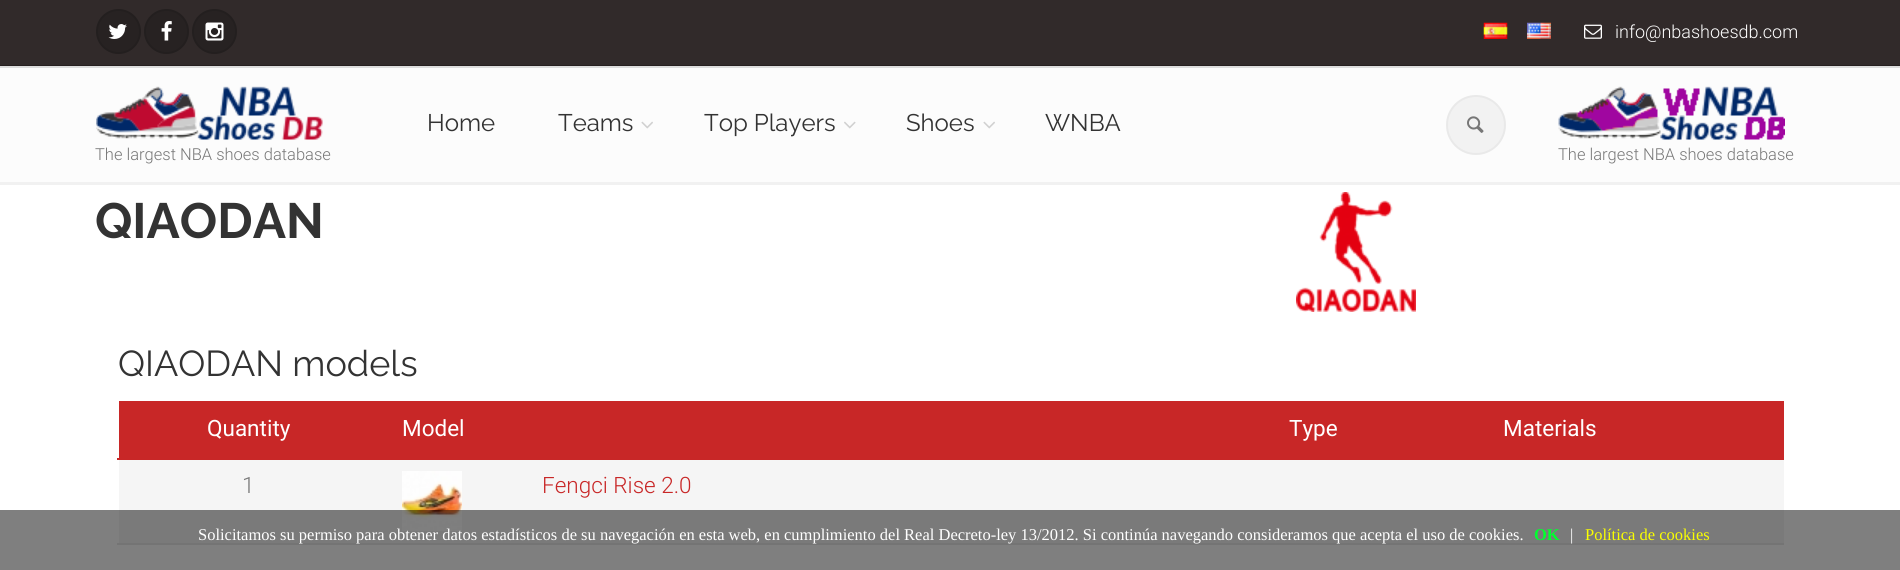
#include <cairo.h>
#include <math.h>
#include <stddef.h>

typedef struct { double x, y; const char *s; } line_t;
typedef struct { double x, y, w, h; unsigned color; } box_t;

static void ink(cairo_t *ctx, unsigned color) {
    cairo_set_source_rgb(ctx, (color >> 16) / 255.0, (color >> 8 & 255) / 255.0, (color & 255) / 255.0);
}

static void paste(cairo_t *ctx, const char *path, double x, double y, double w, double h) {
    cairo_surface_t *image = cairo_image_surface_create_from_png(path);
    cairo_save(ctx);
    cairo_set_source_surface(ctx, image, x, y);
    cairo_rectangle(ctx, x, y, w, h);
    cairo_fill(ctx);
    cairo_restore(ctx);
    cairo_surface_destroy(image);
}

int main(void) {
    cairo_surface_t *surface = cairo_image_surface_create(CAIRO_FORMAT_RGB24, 1900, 570);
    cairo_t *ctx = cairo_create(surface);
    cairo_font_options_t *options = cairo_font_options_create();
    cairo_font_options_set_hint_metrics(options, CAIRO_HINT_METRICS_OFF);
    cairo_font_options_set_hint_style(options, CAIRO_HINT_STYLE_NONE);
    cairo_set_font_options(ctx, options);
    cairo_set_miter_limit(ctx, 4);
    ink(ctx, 0xFFFFFF);
    cairo_paint(ctx);
    ink(ctx, 0x312A2A);
    cairo_rectangle(ctx, 0, 0, 1900, 65);
    cairo_fill(ctx);
    ink(ctx, 0x262020);
    cairo_rectangle(ctx, 0, 65, 1900, 1);
    cairo_fill(ctx);
    ink(ctx, 0x272222);
    cairo_arc(ctx, 118.5, 31.5, 22.5, 0, 2 * M_PI);
    cairo_fill(ctx);
    cairo_arc(ctx, 118.5, 31.5, 21.5, 0, 2 * M_PI);
    cairo_set_source_rgba(ctx, 0, 0, 0, 0.1);
    cairo_stroke(ctx);
    paste(ctx, "media/1.png", 108, 24, 19, 15);
    ink(ctx, 0x272222);
    cairo_arc(ctx, 166.5, 31.5, 22.5, 0, 2 * M_PI);
    cairo_fill(ctx);
    cairo_arc(ctx, 166.5, 31.5, 21.5, 0, 2 * M_PI);
    cairo_set_source_rgba(ctx, 0, 0, 0, 0.1);
    cairo_stroke(ctx);
    paste(ctx, "media/2.png", 161, 21, 11, 20);
    ink(ctx, 0x272222);
    cairo_arc(ctx, 214.5, 31.5, 22.5, 0, 2 * M_PI);
    cairo_fill(ctx);
    cairo_arc(ctx, 214.5, 31.5, 21.5, 0, 2 * M_PI);
    cairo_set_source_rgba(ctx, 0, 0, 0, 0.1);
    cairo_stroke(ctx);
    paste(ctx, "media/3.png", 205, 22, 19, 19);
    paste(ctx, "media/4.png", 1483, 22, 25, 17);
    paste(ctx, "media/5.png", 1527, 22, 24, 17);
    paste(ctx, "media/6.png", 1584, 24, 18, 15);
    cairo_select_font_face(ctx, "Roboto Light", CAIRO_FONT_SLANT_NORMAL, CAIRO_FONT_WEIGHT_NORMAL);
    cairo_set_font_size(ctx, 18);
    ink(ctx, 0xFFFFFF);
    cairo_move_to(ctx, 1615, 38);
    cairo_show_text(ctx, "info@nbashoesdb.com");
    {
        static const box_t items[] = {
            {0, 68, 1900, 114, 0xFCFCFC},
            {0, 66, 1900, 2, 0xDDDDDD},
            {0, 182, 1900, 3, 0xF1F1F1},
        };
        for (size_t i = 0; i < sizeof items / sizeof *items; i++) {
            ink(ctx, items[i].color);
            cairo_rectangle(ctx, items[i].x, items[i].y, items[i].w, items[i].h);
            cairo_fill(ctx);
        }
    }
    cairo_select_font_face(ctx, "Raleway", CAIRO_FONT_SLANT_NORMAL, CAIRO_FONT_WEIGHT_NORMAL);
    cairo_set_font_size(ctx, 24);
    ink(ctx, 0x333333);
    cairo_move_to(ctx, 427, 131);
    cairo_show_text(ctx, "Home");
    cairo_move_to(ctx, 558, 131);
    cairo_show_text(ctx, "Teams");
    paste(ctx, "media/7.png", 641, 121, 12, 8);
    cairo_move_to(ctx, 704, 131);
    cairo_show_text(ctx, "Top Players");
    paste(ctx, "media/8.png", 844, 121, 12, 8);
    cairo_move_to(ctx, 906, 131);
    cairo_show_text(ctx, "Shoes");
    paste(ctx, "media/7.png", 983, 121, 12, 8);
    cairo_move_to(ctx, 1045, 131);
    cairo_show_text(ctx, "WNBA");
    ink(ctx, 0xF2F2F2);
    cairo_new_path(ctx);
    cairo_arc(ctx, 1476, 125, 29, 0, 2 * M_PI);
    cairo_fill_preserve(ctx);
    ink(ctx, 0xE9E9E9);
    cairo_stroke(ctx);
    paste(ctx, "media/9.png", 1467, 116, 17, 17);
    paste(ctx, "media/10.png", 96, 86, 227, 54);
    cairo_select_font_face(ctx, "Roboto Light", CAIRO_FONT_SLANT_NORMAL, CAIRO_FONT_WEIGHT_NORMAL);
    cairo_set_font_size(ctx, 16.5);
    ink(ctx, 0x777777);
    cairo_move_to(ctx, 95, 160);
    cairo_show_text(ctx, "The largest NBA shoes database");
    paste(ctx, "media/11.png", 1558, 86, 227, 54);
    cairo_move_to(ctx, 1558, 160);
    cairo_show_text(ctx, "The largest NBA shoes database");
    cairo_select_font_face(ctx, "Raleway", CAIRO_FONT_SLANT_NORMAL, CAIRO_FONT_WEIGHT_BOLD);
    cairo_set_font_size(ctx, 49.5);
    ink(ctx, 0x333333);
    cairo_move_to(ctx, 95, 238);
    cairo_show_text(ctx, "QIAODAN");
    paste(ctx, "media/12.png", 1296, 192, 120, 120);
    cairo_select_font_face(ctx, "Raleway", CAIRO_FONT_SLANT_NORMAL, CAIRO_FONT_WEIGHT_NORMAL);
    cairo_set_font_size(ctx, 36);
    cairo_move_to(ctx, 118, 376);
    cairo_show_text(ctx, "QIAODAN models");
    ink(ctx, 0xC82727);
    cairo_rectangle(ctx, 119, 401, 1665, 57);
    cairo_fill(ctx);
    cairo_select_font_face(ctx, "Roboto", CAIRO_FONT_SLANT_NORMAL, CAIRO_FONT_WEIGHT_NORMAL);
    cairo_set_font_size(ctx, 22.5);
    ink(ctx, 0xFFFFFF);
    {
        static const line_t items[] = {
            {207, 436, "Quantity"},
            {402, 436, "Model"},
            {1289, 436, "Type"},
            {1503, 436, "Materials"},
        };
        for (size_t i = 0; i < sizeof items / sizeof *items; i++) {
            cairo_move_to(ctx, items[i].x, items[i].y);
            cairo_show_text(ctx, items[i].s);
        }
    }
    ink(ctx, 0xC82727);
    cairo_rectangle(ctx, 117, 458, 1667, 2);
    cairo_fill(ctx);
    ink(ctx, 0xF5F5F5);
    cairo_rectangle(ctx, 119, 460, 1665, 83);
    cairo_fill(ctx);
    cairo_select_font_face(ctx, "Roboto Light", CAIRO_FONT_SLANT_NORMAL, CAIRO_FONT_WEIGHT_NORMAL);
    ink(ctx, 0x777777);
    cairo_move_to(ctx, 242, 493);
    cairo_show_text(ctx, "1");
    paste(ctx, "media/13.png", 402, 471, 60, 60);
    ink(ctx, 0xC82727);
    cairo_move_to(ctx, 542, 493);
    cairo_show_text(ctx, "Fengci Rise 2.0");
    ink(ctx, 0xE8E8E8);
    cairo_rectangle(ctx, 117, 543, 1667, 2);
    cairo_fill(ctx);
    cairo_set_source_rgba(ctx, 0, 0, 0, 0.5);
    cairo_rectangle(ctx, 0, 510, 1900, 60);
    cairo_fill(ctx);
    cairo_select_font_face(ctx, "Liberation Serif", CAIRO_FONT_SLANT_NORMAL, CAIRO_FONT_WEIGHT_NORMAL);
    cairo_set_font_size(ctx, 16.5);
    ink(ctx, 0xFFFFFF);
    cairo_move_to(ctx, 198, 540);
    cairo_show_text(ctx, "Solicitamos su permiso para obtener datos estadísticos de su navegación en esta web, en cumplimiento del Real Decreto-ley 13/2012. Si continúa navegando consideramos que acepta el uso de cookies.");
    cairo_select_font_face(ctx, "Liberation Serif", CAIRO_FONT_SLANT_NORMAL, CAIRO_FONT_WEIGHT_BOLD);
    ink(ctx, 0x00FF2E);
    cairo_move_to(ctx, 1534, 540);
    cairo_show_text(ctx, "OK");
    cairo_select_font_face(ctx, "Liberation Serif", CAIRO_FONT_SLANT_NORMAL, CAIRO_FONT_WEIGHT_NORMAL);
    ink(ctx, 0xFFFFFF);
    cairo_move_to(ctx, 1570, 540);
    cairo_show_text(ctx, "|");
    ink(ctx, 0xFAFF00);
    cairo_move_to(ctx, 1585, 540);
    cairo_show_text(ctx, "Política de cookies");
    cairo_surface_write_to_png(surface, "image.png");
    cairo_font_options_destroy(options);
    cairo_destroy(ctx);
    cairo_surface_destroy(surface);
    return 0;
}
